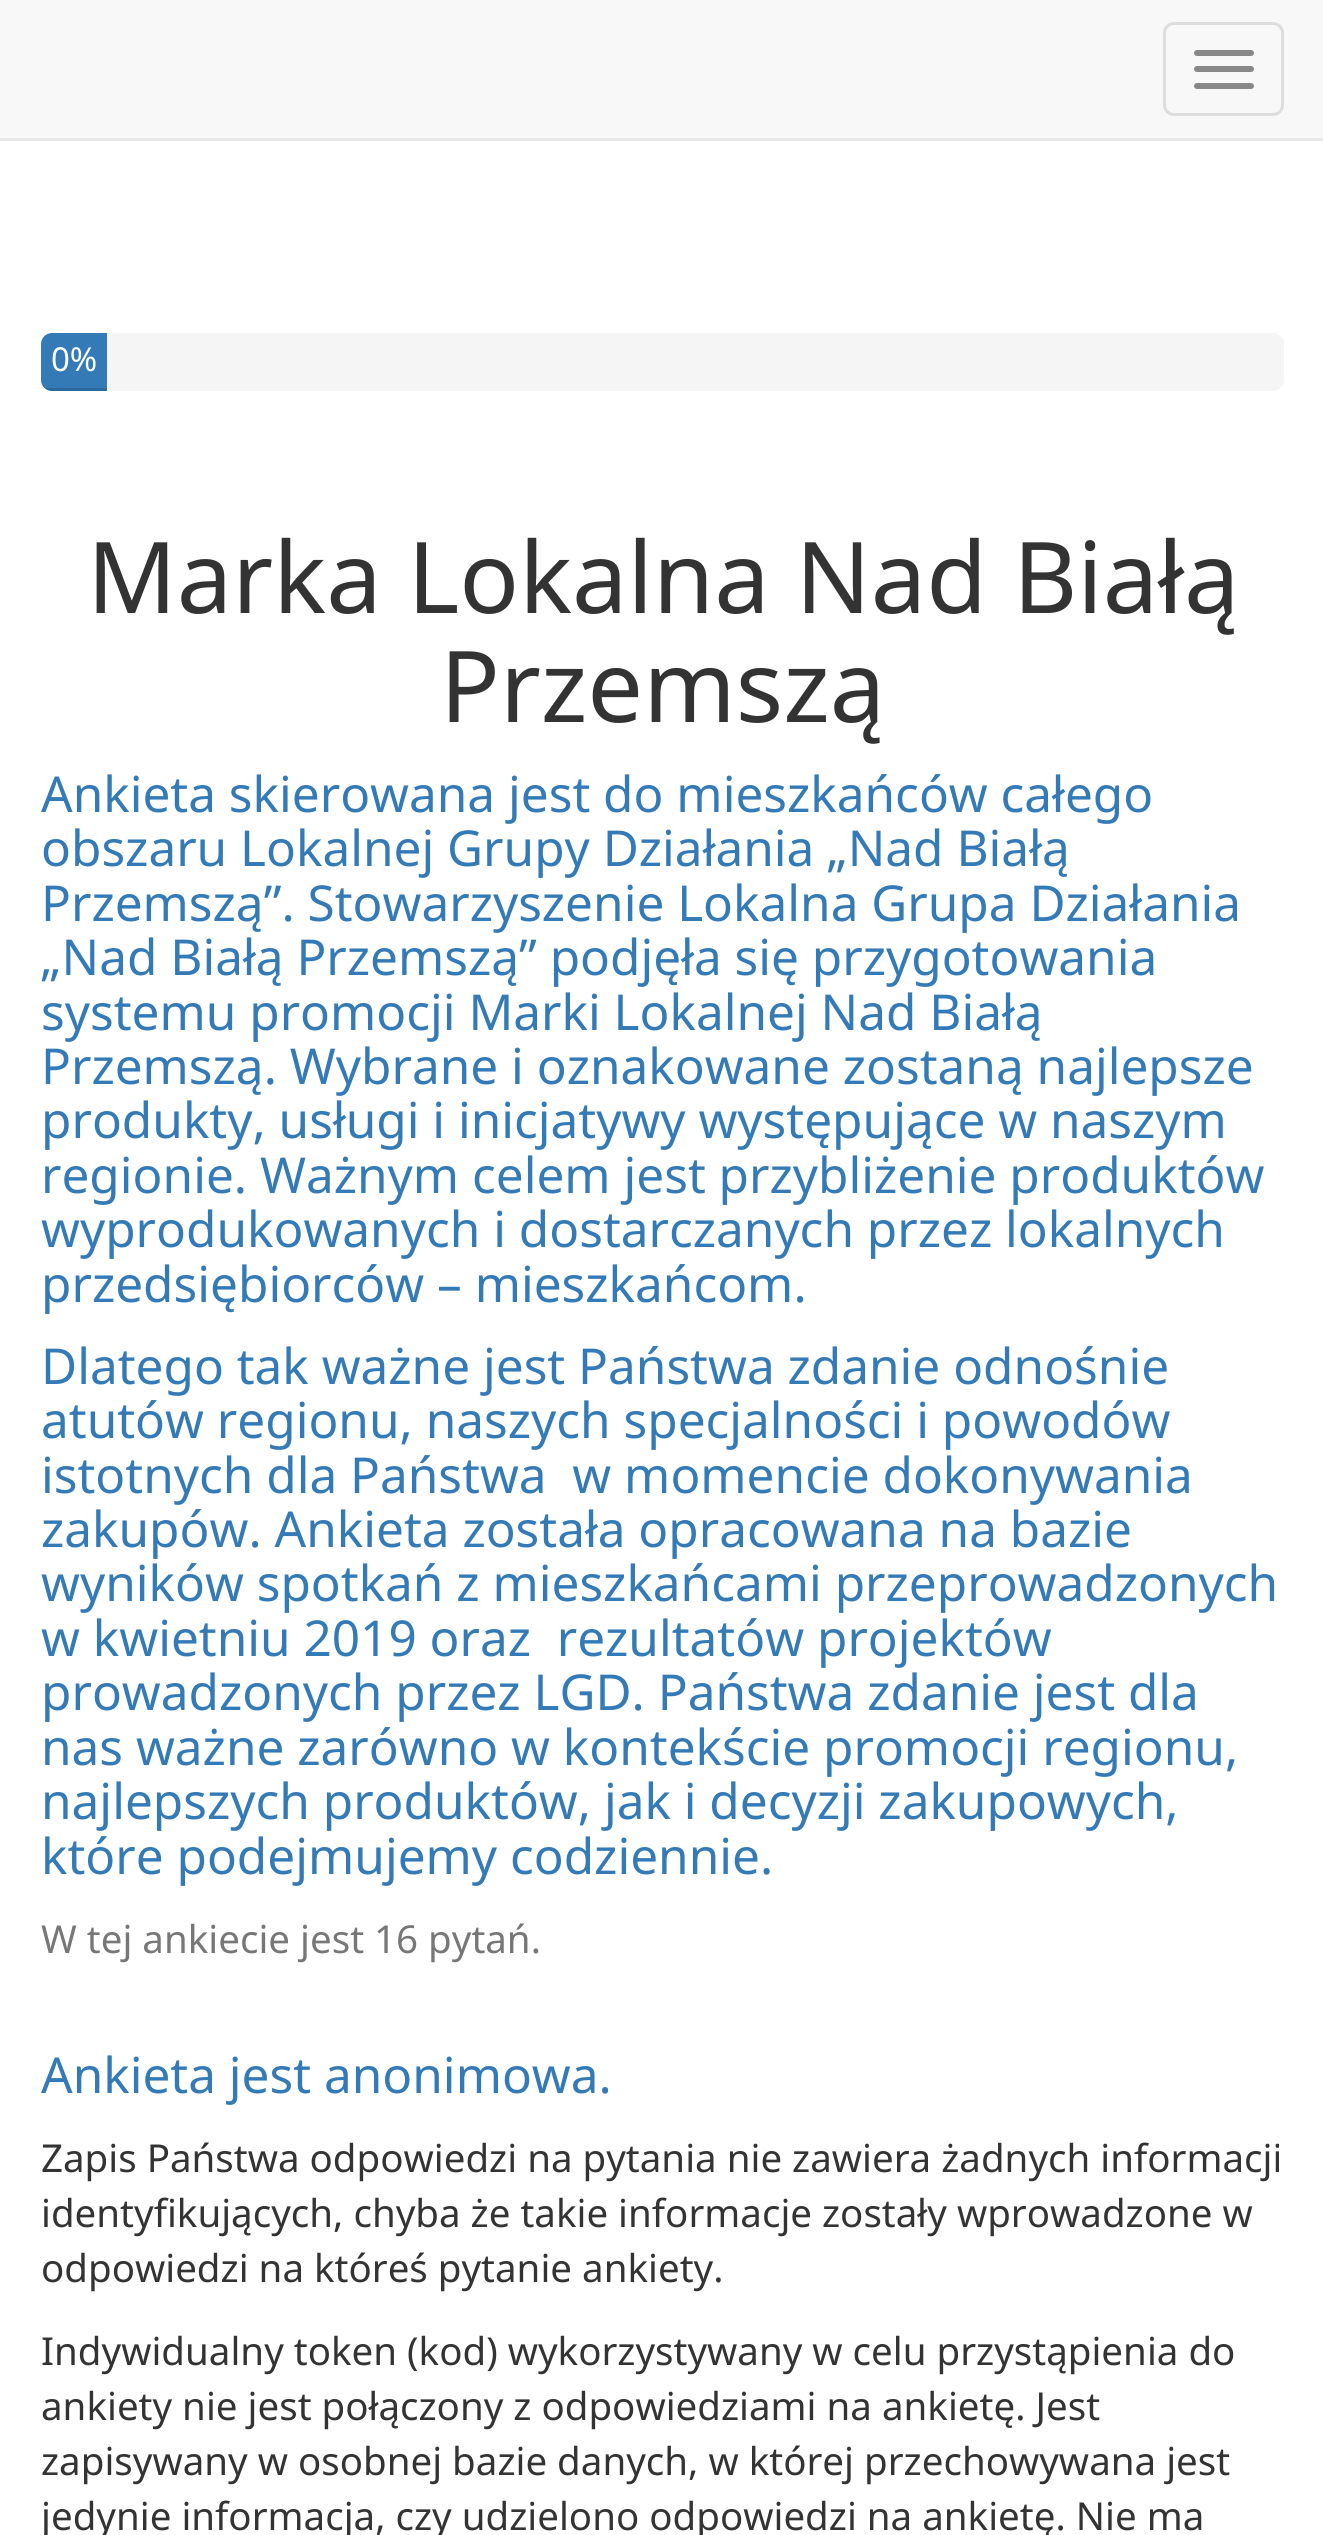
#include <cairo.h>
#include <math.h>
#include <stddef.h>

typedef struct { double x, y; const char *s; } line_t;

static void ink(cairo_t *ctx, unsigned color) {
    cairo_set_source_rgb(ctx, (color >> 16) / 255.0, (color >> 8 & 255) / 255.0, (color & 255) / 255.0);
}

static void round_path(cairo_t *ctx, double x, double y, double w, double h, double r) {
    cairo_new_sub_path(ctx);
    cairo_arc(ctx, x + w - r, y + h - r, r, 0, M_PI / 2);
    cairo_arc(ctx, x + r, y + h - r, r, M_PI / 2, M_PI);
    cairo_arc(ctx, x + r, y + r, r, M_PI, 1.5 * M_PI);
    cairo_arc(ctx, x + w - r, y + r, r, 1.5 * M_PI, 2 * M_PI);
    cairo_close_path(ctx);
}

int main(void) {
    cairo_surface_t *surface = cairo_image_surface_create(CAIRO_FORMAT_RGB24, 1323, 2535);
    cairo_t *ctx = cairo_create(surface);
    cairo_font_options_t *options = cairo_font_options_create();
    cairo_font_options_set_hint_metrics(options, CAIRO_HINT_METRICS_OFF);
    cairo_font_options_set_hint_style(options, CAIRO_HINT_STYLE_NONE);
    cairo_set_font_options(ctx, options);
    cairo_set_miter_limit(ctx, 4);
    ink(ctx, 0xFFFFFF);
    cairo_paint(ctx);
    ink(ctx, 0xF8F8F8);
    cairo_rectangle(ctx, 0, 0, 1323, 138);
    cairo_fill(ctx);
    ink(ctx, 0xE7E7E7);
    cairo_rectangle(ctx, 0, 138, 1323, 3);
    cairo_fill(ctx);
    round_path(ctx, 1164.5, 23.5, 118, 91, 9.5);
    ink(ctx, 0xDDDDDD);
    cairo_set_line_width(ctx, 3);
    cairo_stroke(ctx);
    ink(ctx, 0x888888);
    round_path(ctx, 1194, 50, 60, 6, 3);
    cairo_fill(ctx);
    round_path(ctx, 1194, 66, 60, 6, 3);
    cairo_fill(ctx);
    round_path(ctx, 1194, 83, 60, 6, 3);
    cairo_fill(ctx);
    ink(ctx, 0xF5F5F5);
    round_path(ctx, 41, 333, 1243, 58, 11);
    cairo_fill(ctx);
    ink(ctx, 0x337AB7);
    cairo_new_path(ctx);
    cairo_move_to(ctx, 52, 333);
    cairo_line_to(ctx, 107, 333);
    cairo_line_to(ctx, 107, 391);
    cairo_line_to(ctx, 52, 391);
    cairo_curve_to(ctx, 46, 391, 41, 386, 41, 380);
    cairo_line_to(ctx, 41, 344);
    cairo_curve_to(ctx, 41, 338, 46, 333, 52, 333);
    cairo_close_path(ctx);
    cairo_fill(ctx);
    cairo_save(ctx);
    round_path(ctx, 41, 333, 1243, 58, 11);
    cairo_clip(ctx);
    cairo_set_source_rgba(ctx, 0, 0, 0, 0.15);
    cairo_rectangle(ctx, 41, 388, 66, 3);
    cairo_fill(ctx);
    cairo_restore(ctx);
    cairo_select_font_face(ctx, "Noto Sans", CAIRO_FONT_SLANT_NORMAL, CAIRO_FONT_WEIGHT_NORMAL);
    cairo_set_font_size(ctx, 33);
    ink(ctx, 0xFFFFFF);
    cairo_move_to(ctx, 51, 371);
    cairo_show_text(ctx, "0%");
    cairo_set_font_size(ctx, 99);
    ink(ctx, 0x333333);
    cairo_move_to(ctx, 87, 613);
    cairo_show_text(ctx, "Marka Lokalna Nad Białą");
    cairo_move_to(ctx, 440, 722);
    cairo_show_text(ctx, "Przemszą");
    cairo_set_font_size(ctx, 49.5);
    ink(ctx, 0x337AB7);
    {
        static const line_t items[] = {
            {41, 812, "Ankieta skierowana jest do mieszkańców całego"},
            {41, 866, "obszaru Lokalnej Grupy Działania „Nad Białą"},
            {41, 921, "Przemszą”. Stowarzyszenie Lokalna Grupa Działania"},
            {41, 975, "„Nad Białą Przemszą” podjęła się przygotowania"},
            {41, 1030, "systemu promocji Marki Lokalnej Nad Białą"},
            {41, 1084, "Przemszą. Wybrane i oznakowane zostaną najlepsze"},
            {41, 1138, "produkty, usługi i inicjatywy występujące w naszym"},
            {41, 1193, "regionie. Ważnym celem jest przybliżenie produktów"},
            {41, 1247, "wyprodukowanych i dostarczanych przez lokalnych"},
            {41, 1302, "przedsiębiorców – mieszkańcom."},
            {41, 1384, "Dlatego tak ważne jest Państwa zdanie odnośnie"},
            {41, 1438, "atutów regionu, naszych specjalności i powodów"},
            {41, 1493, "istotnych dla Państwa  w momencie dokonywania"},
            {41, 1547, "zakupów. Ankieta została opracowana na bazie"},
            {41, 1601, "wyników spotkań z mieszkańcami przeprowadzonych"},
            {41, 1656, "w kwietniu 2019 oraz  rezultatów projektów"},
            {41, 1710, "prowadzonych przez LGD. Państwa zdanie jest dla"},
            {41, 1765, "nas ważne zarówno w kontekście promocji regionu,"},
            {41, 1819, "najlepszych produktów, jak i decyzji zakupowych,"},
            {41, 1874, "które podejmujemy codziennie."},
        };
        for (size_t i = 0; i < sizeof items / sizeof *items; i++) {
            cairo_move_to(ctx, items[i].x, items[i].y);
            cairo_show_text(ctx, items[i].s);
        }
    }
    cairo_set_font_size(ctx, 38.5);
    ink(ctx, 0x777777);
    cairo_move_to(ctx, 41, 1953);
    cairo_show_text(ctx, "W tej ankiecie jest 16 pytań.");
    cairo_set_font_size(ctx, 49.5);
    ink(ctx, 0x337AB7);
    cairo_move_to(ctx, 41, 2093);
    cairo_show_text(ctx, "Ankieta jest anonimowa.");
    cairo_set_font_size(ctx, 38.5);
    ink(ctx, 0x333333);
    {
        static const line_t items[] = {
            {41, 2172, "Zapis Państwa odpowiedzi na pytania nie zawiera żadnych informacji"},
            {41, 2227, "identyfikujących, chyba że takie informacje zostały wprowadzone w"},
            {41, 2282, "odpowiedzi na któreś pytanie ankiety."},
            {41, 2365, "Indywidualny token (kod) wykorzystywany w celu przystąpienia do"},
            {41, 2420, "ankiety nie jest połączony z odpowiedziami na ankietę. Jest"},
            {41, 2475, "zapisywany w osobnej bazie danych, w której przechowywana jest"},
            {41, 2530, "jedynie informacja, czy udzielono odpowiedzi na ankietę. Nie ma"},
        };
        for (size_t i = 0; i < sizeof items / sizeof *items; i++) {
            cairo_move_to(ctx, items[i].x, items[i].y);
            cairo_show_text(ctx, items[i].s);
        }
    }
    cairo_surface_write_to_png(surface, "image.png");
    cairo_font_options_destroy(options);
    cairo_destroy(ctx);
    cairo_surface_destroy(surface);
    return 0;
}
